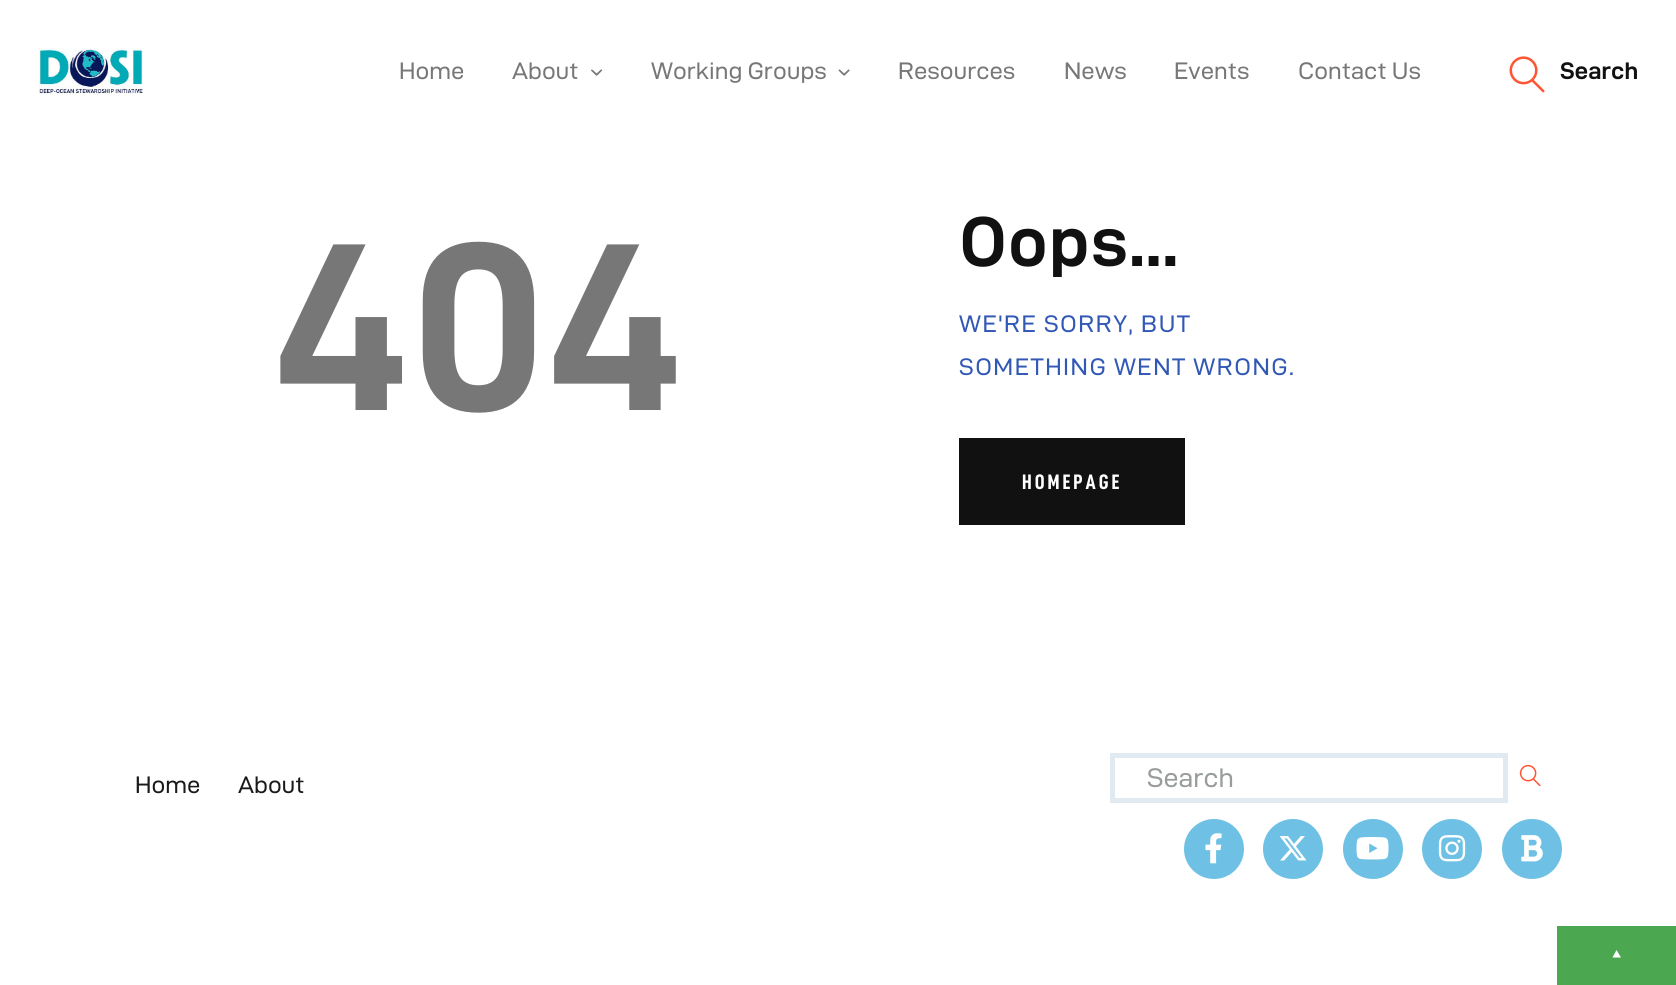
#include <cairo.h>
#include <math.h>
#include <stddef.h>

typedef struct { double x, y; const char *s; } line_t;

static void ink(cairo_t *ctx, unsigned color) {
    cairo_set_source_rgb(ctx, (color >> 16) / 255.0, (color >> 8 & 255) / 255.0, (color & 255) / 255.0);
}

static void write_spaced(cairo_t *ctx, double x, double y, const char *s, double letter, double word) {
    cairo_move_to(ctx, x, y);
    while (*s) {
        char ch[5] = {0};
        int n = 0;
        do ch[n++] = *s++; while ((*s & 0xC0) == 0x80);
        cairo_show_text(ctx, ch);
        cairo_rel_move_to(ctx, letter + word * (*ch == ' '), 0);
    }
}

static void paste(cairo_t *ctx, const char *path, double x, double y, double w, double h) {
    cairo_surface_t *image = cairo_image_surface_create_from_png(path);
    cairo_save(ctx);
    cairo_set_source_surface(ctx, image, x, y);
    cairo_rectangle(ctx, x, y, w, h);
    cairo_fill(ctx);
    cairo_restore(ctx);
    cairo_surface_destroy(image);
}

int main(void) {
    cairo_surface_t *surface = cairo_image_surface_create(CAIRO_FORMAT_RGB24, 1676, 985);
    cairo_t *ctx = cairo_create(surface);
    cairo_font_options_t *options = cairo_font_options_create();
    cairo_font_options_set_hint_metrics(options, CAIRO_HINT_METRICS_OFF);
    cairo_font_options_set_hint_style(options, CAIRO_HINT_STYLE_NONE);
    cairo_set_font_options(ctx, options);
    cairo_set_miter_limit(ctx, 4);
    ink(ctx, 0xFFFFFF);
    cairo_paint(ctx);
    paste(ctx, "media/1.png", 39, 48, 104, 47);
    cairo_select_font_face(ctx, "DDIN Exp", CAIRO_FONT_SLANT_NORMAL, CAIRO_FONT_WEIGHT_NORMAL);
    cairo_set_font_size(ctx, 24);
    ink(ctx, 0x777777);
    cairo_move_to(ctx, 399, 79);
    cairo_show_text(ctx, "Home");
    cairo_move_to(ctx, 512, 79);
    cairo_show_text(ctx, "About");
    paste(ctx, "media/2.png", 591, 69, 12, 7);
    cairo_move_to(ctx, 651, 79);
    cairo_show_text(ctx, "Working Groups");
    paste(ctx, "media/3.png", 838, 69, 12, 7);
    {
        static const line_t items[] = {
            {898, 79, "Resources"},
            {1064, 79, "News"},
            {1174, 79, "Events"},
            {1298, 79, "Contact Us"},
        };
        for (size_t i = 0; i < sizeof items / sizeof *items; i++) {
            cairo_move_to(ctx, items[i].x, items[i].y);
            cairo_show_text(ctx, items[i].s);
        }
    }
    paste(ctx, "media/4.png", 1509, 56, 36, 37);
    cairo_select_font_face(ctx, "DDIN Exp", CAIRO_FONT_SLANT_NORMAL, CAIRO_FONT_WEIGHT_BOLD);
    ink(ctx, 0x111111);
    cairo_move_to(ctx, 1560, 79);
    cairo_show_text(ctx, "Search");
    cairo_set_font_size(ctx, 240);
    ink(ctx, 0x777777);
    cairo_move_to(ctx, 271, 410);
    cairo_show_text(ctx, "404");
    cairo_set_font_size(ctx, 70.5);
    ink(ctx, 0x111111);
    write_spaced(ctx, 959, 266, "Oops...", 1.5, 0);
    cairo_select_font_face(ctx, "DDIN Exp", CAIRO_FONT_SLANT_NORMAL, CAIRO_FONT_WEIGHT_NORMAL);
    cairo_set_font_size(ctx, 24);
    ink(ctx, 0x3158B5);
    write_spaced(ctx, 959, 332, "WE'RE SORRY, BUT", 1.5, 0);
    write_spaced(ctx, 959, 375, "SOMETHING WENT WRONG.", 1.5, 0);
    ink(ctx, 0x111111);
    cairo_rectangle(ctx, 959, 438, 226, 87);
    cairo_fill(ctx);
    cairo_select_font_face(ctx, "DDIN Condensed", CAIRO_FONT_SLANT_NORMAL, CAIRO_FONT_WEIGHT_BOLD);
    cairo_set_font_size(ctx, 21);
    ink(ctx, 0xFFFFFF);
    write_spaced(ctx, 1022, 489, "HOMEPAGE", 3, 0);
    cairo_select_font_face(ctx, "DDIN Exp", CAIRO_FONT_SLANT_NORMAL, CAIRO_FONT_WEIGHT_NORMAL);
    cairo_set_font_size(ctx, 24);
    ink(ctx, 0x1A1A1A);
    cairo_move_to(ctx, 135, 793);
    cairo_show_text(ctx, "Home");
    cairo_move_to(ctx, 238, 793);
    cairo_show_text(ctx, "About");
    cairo_rectangle(ctx, 1112.5, 755.5, 393, 45);
    ink(ctx, 0xE1EAF0);
    cairo_set_line_width(ctx, 5);
    cairo_stroke(ctx);
    cairo_set_font_size(ctx, 27);
    ink(ctx, 0x989C9C);
    cairo_move_to(ctx, 1147, 787);
    cairo_show_text(ctx, "Search");
    paste(ctx, "media/5.png", 1519, 764, 22, 23);
    ink(ctx, 0x6EC1E4);
    cairo_arc(ctx, 1214, 849, 30, 0, 2 * M_PI);
    cairo_fill(ctx);
    paste(ctx, "media/6.png", 1205, 833, 17, 31);
    cairo_arc(ctx, 1293, 849, 30, 0, 2 * M_PI);
    cairo_fill(ctx);
    paste(ctx, "media/7.png", 1279, 836, 28, 25);
    cairo_arc(ctx, 1373, 849, 30, 0, 2 * M_PI);
    cairo_fill(ctx);
    paste(ctx, "media/8.png", 1356, 837, 33, 23);
    cairo_arc(ctx, 1452, 849, 30, 0, 2 * M_PI);
    cairo_fill(ctx);
    paste(ctx, "media/9.png", 1438, 835, 28, 27);
    cairo_arc(ctx, 1532, 849, 30, 0, 2 * M_PI);
    cairo_fill(ctx);
    paste(ctx, "media/10.png", 1521, 835, 22, 27);
    ink(ctx, 0x4BA750);
    cairo_rectangle(ctx, 1557, 926, 119, 59);
    cairo_fill(ctx);
    ink(ctx, 0xFFFFFF);
    cairo_new_path(ctx);
    cairo_move_to(ctx, 1612.5, 957.5);
    cairo_line_to(ctx, 1616.5, 950);
    cairo_line_to(ctx, 1621, 957.5);
    cairo_close_path(ctx);
    cairo_fill(ctx);
    cairo_surface_write_to_png(surface, "image.png");
    cairo_font_options_destroy(options);
    cairo_destroy(ctx);
    cairo_surface_destroy(surface);
    return 0;
}
